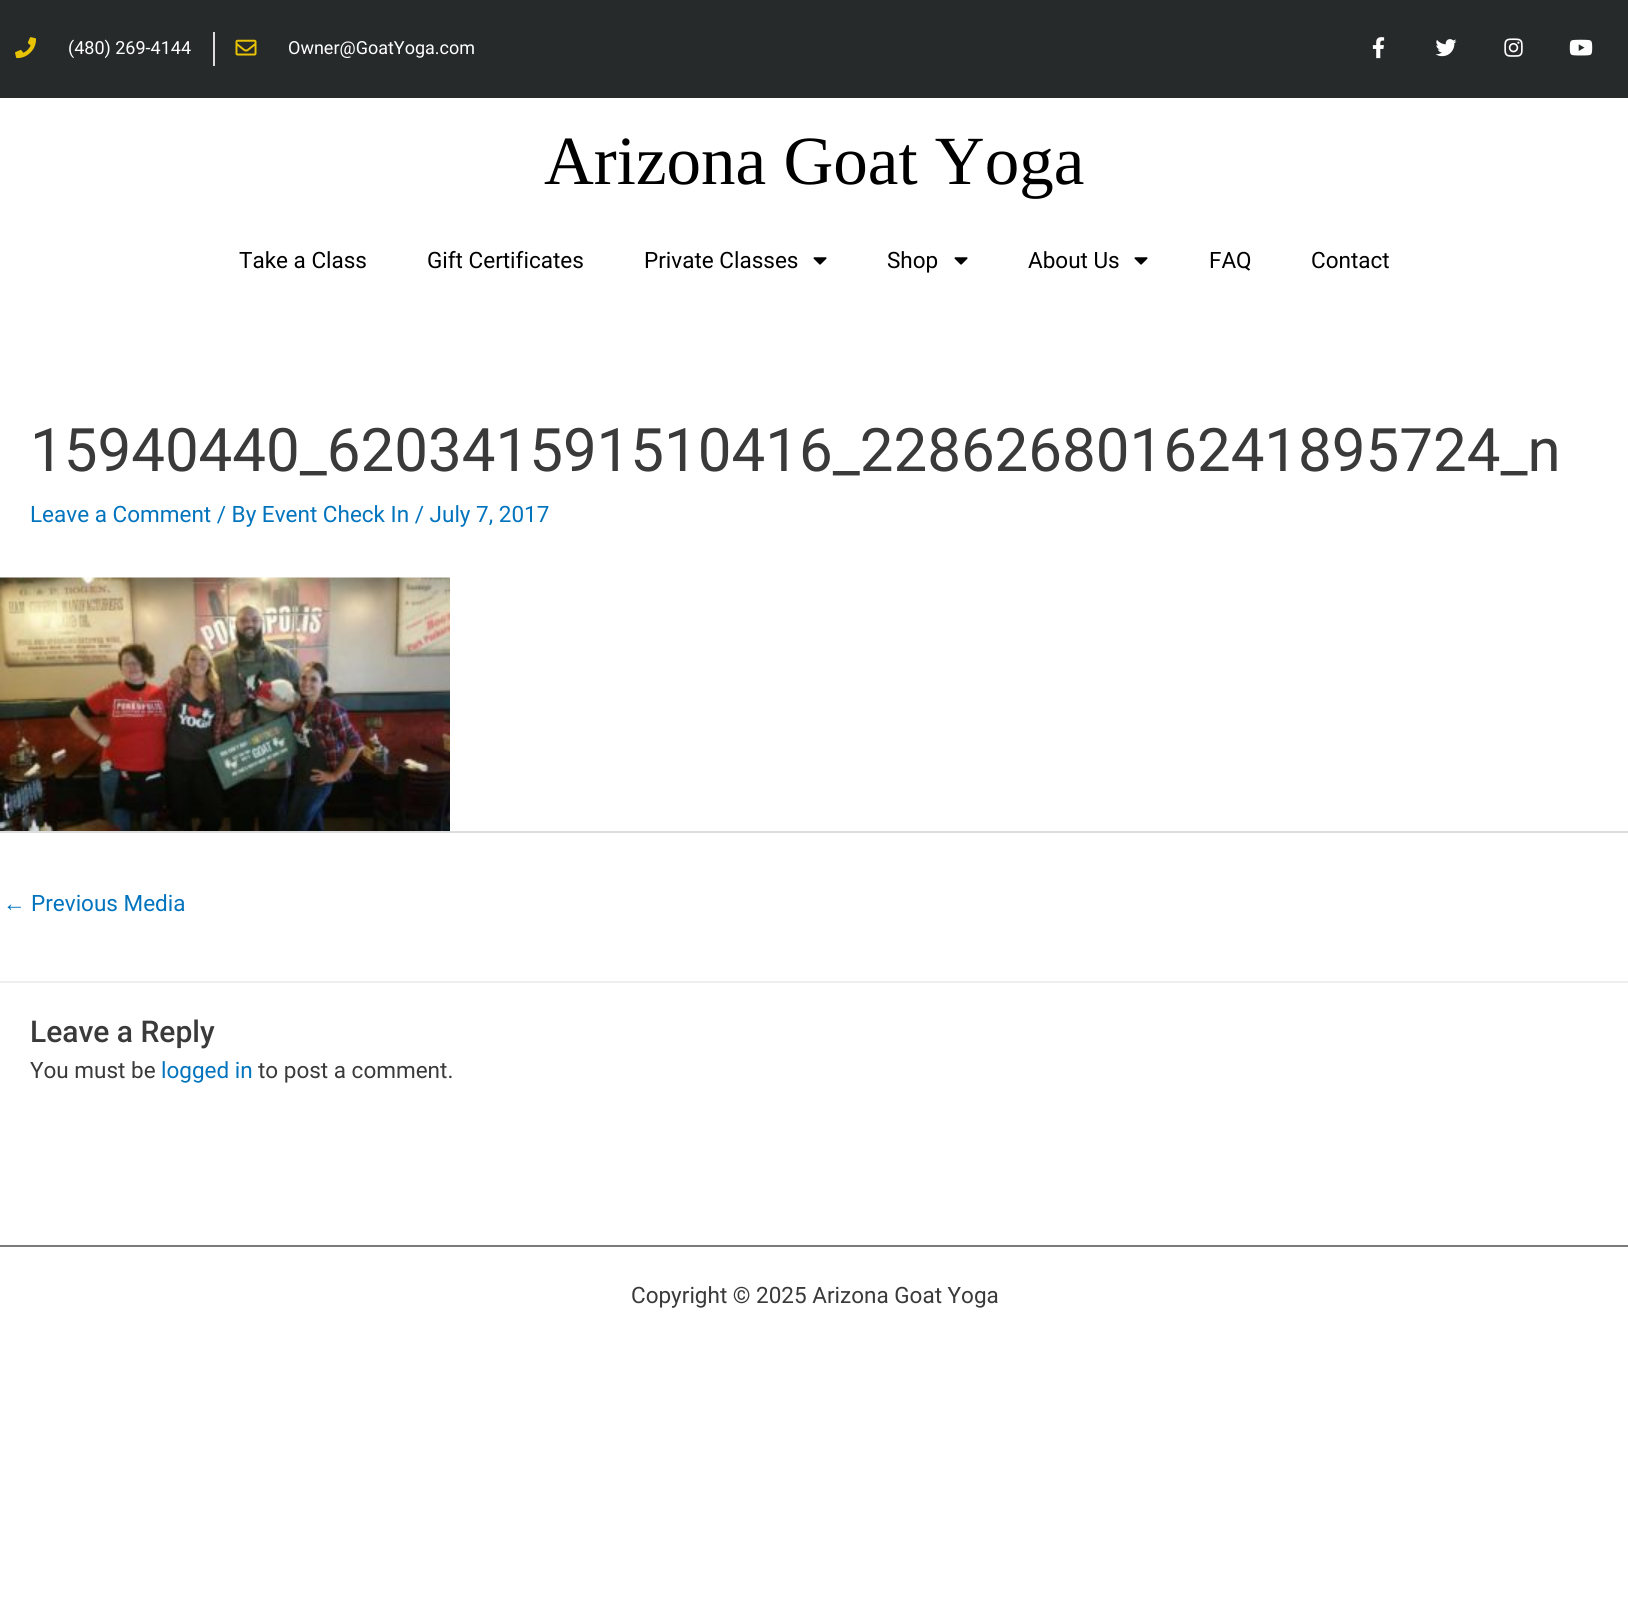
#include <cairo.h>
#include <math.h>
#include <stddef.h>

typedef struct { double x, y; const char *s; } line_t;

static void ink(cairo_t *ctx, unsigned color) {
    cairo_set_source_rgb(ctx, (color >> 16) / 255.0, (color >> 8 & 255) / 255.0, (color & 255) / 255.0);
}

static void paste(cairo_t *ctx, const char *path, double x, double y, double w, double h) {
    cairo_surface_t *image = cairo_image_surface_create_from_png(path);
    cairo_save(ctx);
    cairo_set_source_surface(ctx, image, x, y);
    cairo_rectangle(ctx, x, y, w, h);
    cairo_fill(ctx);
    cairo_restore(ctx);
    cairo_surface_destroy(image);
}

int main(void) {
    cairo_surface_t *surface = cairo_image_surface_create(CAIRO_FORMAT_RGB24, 1628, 1603);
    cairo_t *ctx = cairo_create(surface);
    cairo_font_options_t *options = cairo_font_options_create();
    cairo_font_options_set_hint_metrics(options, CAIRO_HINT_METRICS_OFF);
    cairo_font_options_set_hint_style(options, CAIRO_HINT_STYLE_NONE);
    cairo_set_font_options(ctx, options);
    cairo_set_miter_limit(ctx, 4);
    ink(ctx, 0xFFFFFF);
    cairo_paint(ctx);
    ink(ctx, 0x262A2B);
    cairo_rectangle(ctx, 0, 0, 1628, 98);
    cairo_fill(ctx);
    paste(ctx, "media/1.png", 15, 37, 21, 22);
    cairo_select_font_face(ctx, "Roboto", CAIRO_FONT_SLANT_NORMAL, CAIRO_FONT_WEIGHT_NORMAL);
    cairo_set_font_size(ctx, 18);
    ink(ctx, 0xFFFFFF);
    cairo_move_to(ctx, 68, 54);
    cairo_show_text(ctx, "(480) 269-4144");
    ink(ctx, 0xDDDDDD);
    cairo_rectangle(ctx, 213, 32, 2, 34);
    cairo_fill(ctx);
    paste(ctx, "media/2.png", 235, 39, 22, 17);
    ink(ctx, 0xFFFFFF);
    cairo_move_to(ctx, 288, 54);
    cairo_show_text(ctx, "Owner@GoatYoga.com");
    paste(ctx, "media/3.png", 1372, 37, 13, 22);
    paste(ctx, "media/4.png", 1435, 39, 22, 18);
    paste(ctx, "media/5.png", 1504, 38, 19, 19);
    paste(ctx, "media/6.png", 1569, 39, 24, 17);
    cairo_select_font_face(ctx, "Liberation Serif", CAIRO_FONT_SLANT_NORMAL, CAIRO_FONT_WEIGHT_NORMAL);
    cairo_set_font_size(ctx, 69);
    ink(ctx, 0x000000);
    cairo_move_to(ctx, 544, 184);
    cairo_show_text(ctx, "Arizona Goat Yoga");
    cairo_select_font_face(ctx, "Roboto", CAIRO_FONT_SLANT_NORMAL, CAIRO_FONT_WEIGHT_NORMAL);
    cairo_set_font_size(ctx, 22.5);
    {
        static const line_t items[] = {
            {239, 268, "Take a Class"},
            {427, 268, "Gift Certificates"},
            {644, 268, "Private Classes"},
        };
        for (size_t i = 0; i < sizeof items / sizeof *items; i++) {
            cairo_move_to(ctx, items[i].x, items[i].y);
            cairo_show_text(ctx, items[i].s);
        }
    }
    paste(ctx, "media/7.png", 813, 257, 14, 8);
    cairo_move_to(ctx, 887, 268);
    cairo_show_text(ctx, "Shop");
    paste(ctx, "media/7.png", 954, 257, 14, 8);
    cairo_move_to(ctx, 1028, 268);
    cairo_show_text(ctx, "About Us");
    paste(ctx, "media/7.png", 1134, 257, 14, 8);
    cairo_move_to(ctx, 1209, 268);
    cairo_show_text(ctx, "FAQ");
    cairo_move_to(ctx, 1311, 268);
    cairo_show_text(ctx, "Contact");
    cairo_set_font_size(ctx, 60);
    ink(ctx, 0x3A3A3A);
    cairo_move_to(ctx, 30, 471);
    cairo_show_text(ctx, "15940440_620341591510416_2286268016241895724_n");
    cairo_set_font_size(ctx, 22.5);
    ink(ctx, 0x0274BE);
    cairo_move_to(ctx, 30, 522);
    cairo_show_text(ctx, "Leave a Comment / By Event Check In / July 7, 2017");
    paste(ctx, "media/8.png", 0, 577, 450, 254);
    ink(ctx, 0xDDDDDD);
    cairo_rectangle(ctx, 0, 831, 1628, 2);
    cairo_fill(ctx);
    cairo_select_font_face(ctx, "Liberation Sans", CAIRO_FONT_SLANT_NORMAL, CAIRO_FONT_WEIGHT_NORMAL);
    ink(ctx, 0x0274BE);
    cairo_move_to(ctx, 3, 911);
    cairo_show_text(ctx, "←");
    cairo_select_font_face(ctx, "Roboto", CAIRO_FONT_SLANT_NORMAL, CAIRO_FONT_WEIGHT_NORMAL);
    cairo_move_to(ctx, 31, 911);
    cairo_show_text(ctx, "Previous Media");
    ink(ctx, 0xEEEEEE);
    cairo_rectangle(ctx, 0, 981, 1628, 2);
    cairo_fill(ctx);
    cairo_select_font_face(ctx, "Roboto Medium", CAIRO_FONT_SLANT_NORMAL, CAIRO_FONT_WEIGHT_NORMAL);
    cairo_set_font_size(ctx, 30);
    ink(ctx, 0x3A3A3A);
    cairo_move_to(ctx, 30, 1042);
    cairo_show_text(ctx, "Leave a Reply");
    cairo_select_font_face(ctx, "Roboto", CAIRO_FONT_SLANT_NORMAL, CAIRO_FONT_WEIGHT_NORMAL);
    cairo_set_font_size(ctx, 22.5);
    cairo_move_to(ctx, 30, 1078);
    cairo_show_text(ctx, "You must be");
    ink(ctx, 0x0274BE);
    cairo_move_to(ctx, 161, 1078);
    cairo_show_text(ctx, "logged in");
    ink(ctx, 0x3A3A3A);
    cairo_move_to(ctx, 258, 1078);
    cairo_show_text(ctx, "to post a comment.");
    ink(ctx, 0x7A7A7A);
    cairo_rectangle(ctx, 0, 1245, 1628, 2);
    cairo_fill(ctx);
    ink(ctx, 0x3A3A3A);
    cairo_move_to(ctx, 631, 1303);
    cairo_show_text(ctx, "Copyright © 2025 Arizona Goat Yoga");
    cairo_surface_write_to_png(surface, "image.png");
    cairo_font_options_destroy(options);
    cairo_destroy(ctx);
    cairo_surface_destroy(surface);
    return 0;
}
